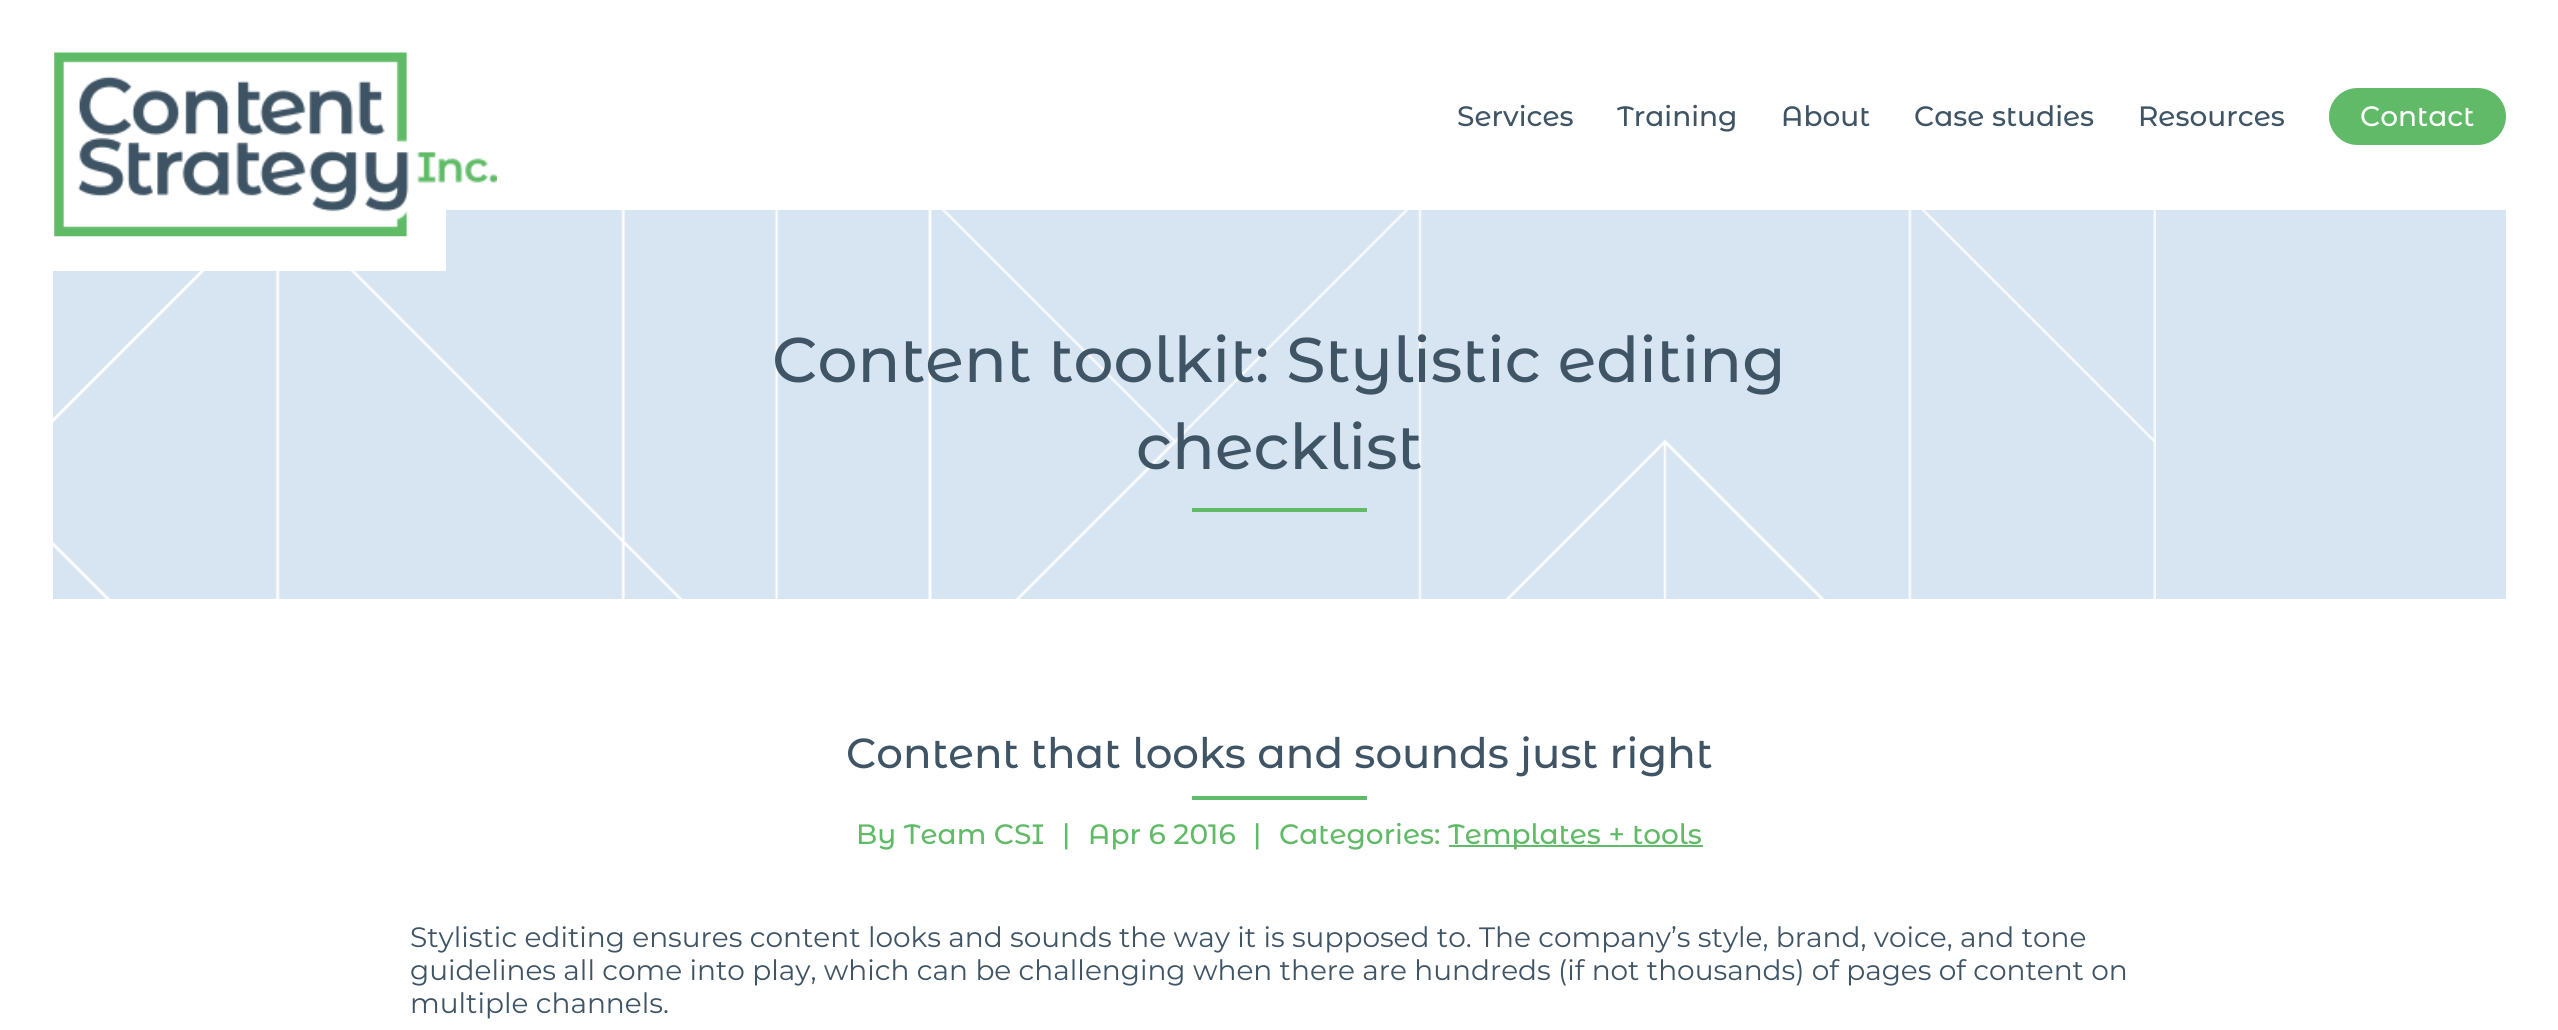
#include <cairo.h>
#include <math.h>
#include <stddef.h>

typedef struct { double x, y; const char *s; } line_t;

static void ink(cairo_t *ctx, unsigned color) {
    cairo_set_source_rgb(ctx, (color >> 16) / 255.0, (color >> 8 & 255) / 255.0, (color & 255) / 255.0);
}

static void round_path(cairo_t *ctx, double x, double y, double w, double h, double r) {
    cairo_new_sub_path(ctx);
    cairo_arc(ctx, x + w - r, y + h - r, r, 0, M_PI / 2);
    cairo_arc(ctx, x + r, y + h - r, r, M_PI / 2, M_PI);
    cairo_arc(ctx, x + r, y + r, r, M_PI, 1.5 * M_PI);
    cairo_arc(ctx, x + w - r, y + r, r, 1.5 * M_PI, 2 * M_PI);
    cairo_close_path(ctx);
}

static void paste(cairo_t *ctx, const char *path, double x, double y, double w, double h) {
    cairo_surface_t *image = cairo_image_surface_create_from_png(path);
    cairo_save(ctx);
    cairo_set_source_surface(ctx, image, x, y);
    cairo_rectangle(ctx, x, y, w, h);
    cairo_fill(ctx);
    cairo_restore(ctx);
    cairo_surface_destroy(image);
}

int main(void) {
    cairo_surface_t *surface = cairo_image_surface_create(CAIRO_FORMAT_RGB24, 2558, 1030);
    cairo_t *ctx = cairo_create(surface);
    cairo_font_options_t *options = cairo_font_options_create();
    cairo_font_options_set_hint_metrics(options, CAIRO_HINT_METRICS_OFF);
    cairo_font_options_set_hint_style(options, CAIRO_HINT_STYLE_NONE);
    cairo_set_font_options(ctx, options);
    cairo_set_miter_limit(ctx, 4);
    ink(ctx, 0xFFFFFF);
    cairo_paint(ctx);
    ink(ctx, 0xD7E4F1);
    cairo_rectangle(ctx, 53, 210, 2453, 389);
    cairo_fill(ctx);
    paste(ctx, "media/2.png", 53, 210, 2103, 389);
    ink(ctx, 0xFFFFFF);
    cairo_rectangle(ctx, 53, 210, 393, 61);
    cairo_fill(ctx);
    paste(ctx, "media/1.png", 54, 52, 443, 185);
    cairo_select_font_face(ctx, "Montserrat Alternates Medium", CAIRO_FONT_SLANT_NORMAL, CAIRO_FONT_WEIGHT_NORMAL);
    cairo_set_font_size(ctx, 28);
    ink(ctx, 0x3F5465);
    {
        static const line_t items[] = {
            {1457, 126, "Services"},
            {1617, 126, "Training"},
            {1781, 126, "About"},
            {1914, 126, "Case studies"},
            {2138, 126, "Resources"},
        };
        for (size_t i = 0; i < sizeof items / sizeof *items; i++) {
            cairo_move_to(ctx, items[i].x, items[i].y);
            cairo_show_text(ctx, items[i].s);
        }
    }
    ink(ctx, 0x61BA67);
    round_path(ctx, 2329, 88, 177, 57, 28.5);
    cairo_fill(ctx);
    ink(ctx, 0xFFFFFF);
    cairo_move_to(ctx, 2360, 126);
    cairo_show_text(ctx, "Contact");
    cairo_set_font_size(ctx, 63);
    ink(ctx, 0x3F5465);
    cairo_move_to(ctx, 772, 382);
    cairo_show_text(ctx, "Content toolkit: Stylistic editing");
    cairo_move_to(ctx, 1136, 469);
    cairo_show_text(ctx, "checklist");
    ink(ctx, 0x61BA67);
    cairo_rectangle(ctx, 1192, 508, 175, 4);
    cairo_fill(ctx);
    cairo_set_font_size(ctx, 42);
    ink(ctx, 0x3F5465);
    cairo_move_to(ctx, 846, 768);
    cairo_show_text(ctx, "Content that looks and sounds just right");
    ink(ctx, 0x61BA67);
    cairo_rectangle(ctx, 1192, 796, 175, 4);
    cairo_fill(ctx);
    cairo_set_font_size(ctx, 28);
    {
        static const line_t items[] = {
            {856, 844, "By Team CSI"},
            {1062, 844, "|"},
            {1088, 844, "Apr 6 2016"},
            {1253, 844, "|"},
            {1279, 844, "Categories:"},
        };
        for (size_t i = 0; i < sizeof items / sizeof *items; i++) {
            cairo_move_to(ctx, items[i].x, items[i].y);
            cairo_show_text(ctx, items[i].s);
        }
    }
    cairo_rectangle(ctx, 1449, 845, 254, 2);
    cairo_fill(ctx);
    cairo_move_to(ctx, 1448, 844);
    cairo_show_text(ctx, "Templates + tools");
    cairo_select_font_face(ctx, "Montserrat", CAIRO_FONT_SLANT_NORMAL, CAIRO_FONT_WEIGHT_NORMAL);
    ink(ctx, 0x3F5465);
    {
        static const line_t items[] = {
            {410, 947, "Stylistic editing ensures content looks and sounds the way it is supposed to. The company’s style, brand, voice, and tone"},
            {410, 980, "guidelines all come into play, which can be challenging when there are hundreds (if not thousands) of pages of content on"},
            {410, 1013, "multiple channels."},
        };
        for (size_t i = 0; i < sizeof items / sizeof *items; i++) {
            cairo_move_to(ctx, items[i].x, items[i].y);
            cairo_show_text(ctx, items[i].s);
        }
    }
    cairo_surface_write_to_png(surface, "image.png");
    cairo_font_options_destroy(options);
    cairo_destroy(ctx);
    cairo_surface_destroy(surface);
    return 0;
}
